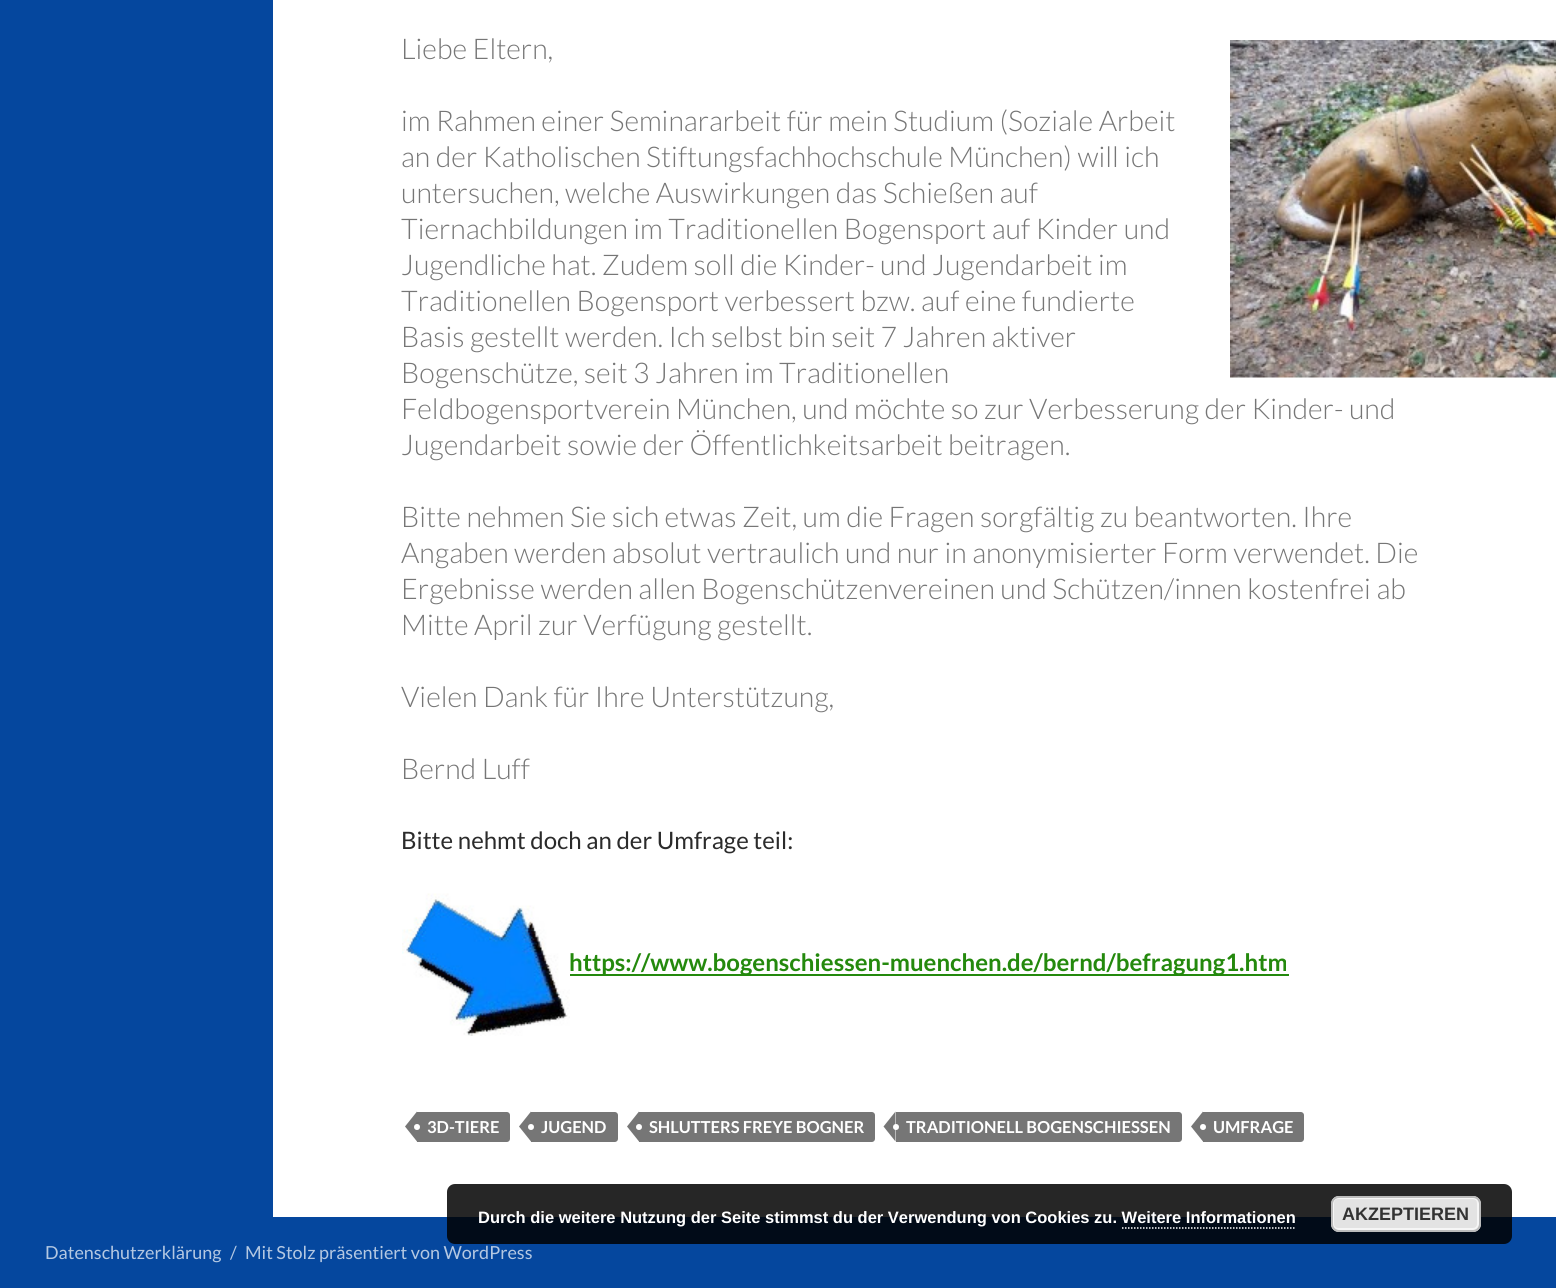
#include <cairo.h>
#include <math.h>
#include <stddef.h>

typedef struct { double x, y; const char *s; } line_t;

static void ink(cairo_t *ctx, unsigned color) {
    cairo_set_source_rgb(ctx, (color >> 16) / 255.0, (color >> 8 & 255) / 255.0, (color & 255) / 255.0);
}

static void round_path(cairo_t *ctx, double x, double y, double w, double h, double r) {
    cairo_new_sub_path(ctx);
    cairo_arc(ctx, x + w - r, y + h - r, r, 0, M_PI / 2);
    cairo_arc(ctx, x + r, y + h - r, r, M_PI / 2, M_PI);
    cairo_arc(ctx, x + r, y + r, r, M_PI, 1.5 * M_PI);
    cairo_arc(ctx, x + w - r, y + r, r, 1.5 * M_PI, 2 * M_PI);
    cairo_close_path(ctx);
}

static void paste(cairo_t *ctx, const char *path, double x, double y, double w, double h) {
    cairo_surface_t *image = cairo_image_surface_create_from_png(path);
    cairo_save(ctx);
    cairo_set_source_surface(ctx, image, x, y);
    cairo_rectangle(ctx, x, y, w, h);
    cairo_fill(ctx);
    cairo_restore(ctx);
    cairo_surface_destroy(image);
}

int main(void) {
    cairo_surface_t *surface = cairo_image_surface_create(CAIRO_FORMAT_RGB24, 1556, 1288);
    cairo_t *ctx = cairo_create(surface);
    cairo_font_options_t *options = cairo_font_options_create();
    cairo_font_options_set_hint_metrics(options, CAIRO_HINT_METRICS_OFF);
    cairo_font_options_set_hint_style(options, CAIRO_HINT_STYLE_NONE);
    cairo_set_font_options(ctx, options);
    cairo_set_miter_limit(ctx, 4);
    ink(ctx, 0xFFFFFF);
    cairo_paint(ctx);
    ink(ctx, 0x05479E);
    cairo_rectangle(ctx, 0, 0, 273, 1217);
    cairo_fill(ctx);
    cairo_select_font_face(ctx, "Lato Light", CAIRO_FONT_SLANT_NORMAL, CAIRO_FONT_WEIGHT_NORMAL);
    cairo_set_font_size(ctx, 28.5);
    ink(ctx, 0x767676);
    cairo_move_to(ctx, 401, 59);
    cairo_show_text(ctx, "Liebe Eltern,");
    paste(ctx, "media/1.png", 1230, 40, 326, 338);
    {
        static const line_t items[] = {
            {401, 131, "im Rahmen einer Seminararbeit für mein Studium (Soziale Arbeit"},
            {401, 167, "an der Katholischen Stiftungsfachhochschule München) will ich"},
            {401, 203, "untersuchen, welche Auswirkungen das Schießen auf"},
            {401, 239, "Tiernachbildungen im Traditionellen Bogensport auf Kinder und"},
            {401, 275, "Jugendliche hat. Zudem soll die Kinder- und Jugendarbeit im"},
            {401, 311, "Traditionellen Bogensport verbessert bzw. auf eine fundierte"},
            {401, 347, "Basis gestellt werden. Ich selbst bin seit 7 Jahren aktiver"},
            {401, 383, "Bogenschütze, seit 3 Jahren im Traditionellen"},
            {401, 419, "Feldbogensportverein München, und möchte so zur Verbesserung der Kinder- und"},
            {401, 455, "Jugendarbeit sowie der Öffentlichkeitsarbeit beitragen."},
            {401, 527, "Bitte nehmen Sie sich etwas Zeit, um die Fragen sorgfältig zu beantworten. Ihre"},
            {401, 563, "Angaben werden absolut vertraulich und nur in anonymisierter Form verwendet. Die"},
            {401, 599, "Ergebnisse werden allen Bogenschützenvereinen und Schützen/innen kostenfrei ab"},
            {401, 635, "Mitte April zur Verfügung gestellt."},
            {401, 707, "Vielen Dank für Ihre Unterstützung,"},
            {401, 779, "Bernd Luff"},
        };
        for (size_t i = 0; i < sizeof items / sizeof *items; i++) {
            cairo_move_to(ctx, items[i].x, items[i].y);
            cairo_show_text(ctx, items[i].s);
        }
    }
    cairo_select_font_face(ctx, "Lato", CAIRO_FONT_SLANT_NORMAL, CAIRO_FONT_WEIGHT_NORMAL);
    cairo_set_font_size(ctx, 24);
    ink(ctx, 0x2B2B2B);
    cairo_move_to(ctx, 401, 849);
    cairo_show_text(ctx, "Bitte nehmt doch an der Umfrage teil:");
    paste(ctx, "media/2.png", 402, 893, 168, 143);
    ink(ctx, 0x24890D);
    cairo_rectangle(ctx, 570, 974, 719, 2);
    cairo_fill(ctx);
    cairo_select_font_face(ctx, "Lato", CAIRO_FONT_SLANT_NORMAL, CAIRO_FONT_WEIGHT_BOLD);
    cairo_move_to(ctx, 569, 971);
    cairo_show_text(ctx, "https://www.bogenschiessen-muenchen.de/bernd/befragung1.htm");
    ink(ctx, 0x767676);
    cairo_new_path(ctx);
    cairo_move_to(ctx, 417, 1112);
    cairo_line_to(ctx, 507, 1112);
    cairo_curve_to(ctx, 508.5, 1112, 510, 1113.5, 510, 1115);
    cairo_line_to(ctx, 510, 1139);
    cairo_curve_to(ctx, 510, 1140.5, 508.5, 1142, 507, 1142);
    cairo_line_to(ctx, 417, 1142);
    cairo_close_path(ctx);
    cairo_fill(ctx);
    cairo_new_path(ctx);
    cairo_move_to(ctx, 417, 1111.5);
    cairo_line_to(ctx, 417, 1141.5);
    cairo_line_to(ctx, 405, 1126.5);
    cairo_close_path(ctx);
    cairo_fill(ctx);
    cairo_set_font_size(ctx, 16.5);
    ink(ctx, 0xFFFFFF);
    cairo_move_to(ctx, 427, 1133);
    cairo_show_text(ctx, "3D-TIERE");
    cairo_new_path(ctx);
    cairo_arc(ctx, 417, 1127, 3, 0, 2 * M_PI);
    cairo_fill(ctx);
    ink(ctx, 0x767676);
    cairo_new_path(ctx);
    cairo_move_to(ctx, 531, 1112);
    cairo_line_to(ctx, 615, 1112);
    cairo_curve_to(ctx, 616.5, 1112, 618, 1113.5, 618, 1115);
    cairo_line_to(ctx, 618, 1139);
    cairo_curve_to(ctx, 618, 1140.5, 616.5, 1142, 615, 1142);
    cairo_line_to(ctx, 531, 1142);
    cairo_close_path(ctx);
    cairo_fill(ctx);
    cairo_new_path(ctx);
    cairo_move_to(ctx, 531, 1111.5);
    cairo_line_to(ctx, 531, 1141.5);
    cairo_line_to(ctx, 519, 1126.5);
    cairo_close_path(ctx);
    cairo_fill(ctx);
    ink(ctx, 0xFFFFFF);
    cairo_move_to(ctx, 541, 1133);
    cairo_show_text(ctx, "JUGEND");
    cairo_new_path(ctx);
    cairo_arc(ctx, 531, 1127, 3, 0, 2 * M_PI);
    cairo_fill(ctx);
    ink(ctx, 0x767676);
    cairo_new_path(ctx);
    cairo_move_to(ctx, 639, 1112);
    cairo_line_to(ctx, 872, 1112);
    cairo_curve_to(ctx, 873.5, 1112, 875, 1113.5, 875, 1115);
    cairo_line_to(ctx, 875, 1139);
    cairo_curve_to(ctx, 875, 1140.5, 873.5, 1142, 872, 1142);
    cairo_line_to(ctx, 639, 1142);
    cairo_close_path(ctx);
    cairo_fill(ctx);
    cairo_new_path(ctx);
    cairo_move_to(ctx, 639, 1111.5);
    cairo_line_to(ctx, 639, 1141.5);
    cairo_line_to(ctx, 627, 1126.5);
    cairo_close_path(ctx);
    cairo_fill(ctx);
    ink(ctx, 0xFFFFFF);
    cairo_move_to(ctx, 649, 1133);
    cairo_show_text(ctx, "SHLUTTERS FREYE BOGNER");
    cairo_new_path(ctx);
    cairo_arc(ctx, 639, 1127, 3, 0, 2 * M_PI);
    cairo_fill(ctx);
    ink(ctx, 0x767676);
    cairo_new_path(ctx);
    cairo_move_to(ctx, 896, 1112);
    cairo_line_to(ctx, 1179, 1112);
    cairo_curve_to(ctx, 1180.5, 1112, 1182, 1113.5, 1182, 1115);
    cairo_line_to(ctx, 1182, 1139);
    cairo_curve_to(ctx, 1182, 1140.5, 1180.5, 1142, 1179, 1142);
    cairo_line_to(ctx, 896, 1142);
    cairo_close_path(ctx);
    cairo_fill(ctx);
    cairo_new_path(ctx);
    cairo_move_to(ctx, 895.5, 1111.5);
    cairo_line_to(ctx, 895.5, 1141.5);
    cairo_line_to(ctx, 883.5, 1126.5);
    cairo_close_path(ctx);
    cairo_fill(ctx);
    ink(ctx, 0xFFFFFF);
    cairo_move_to(ctx, 906, 1133);
    cairo_show_text(ctx, "TRADITIONELL BOGENSCHIESSEN");
    cairo_new_path(ctx);
    cairo_arc(ctx, 896, 1127, 3, 0, 2 * M_PI);
    cairo_fill(ctx);
    ink(ctx, 0x767676);
    cairo_new_path(ctx);
    cairo_move_to(ctx, 1203, 1112);
    cairo_line_to(ctx, 1301, 1112);
    cairo_curve_to(ctx, 1302.5, 1112, 1304, 1113.5, 1304, 1115);
    cairo_line_to(ctx, 1304, 1139);
    cairo_curve_to(ctx, 1304, 1140.5, 1302.5, 1142, 1301, 1142);
    cairo_line_to(ctx, 1203, 1142);
    cairo_close_path(ctx);
    cairo_fill(ctx);
    cairo_new_path(ctx);
    cairo_move_to(ctx, 1203, 1111.5);
    cairo_line_to(ctx, 1203, 1141.5);
    cairo_line_to(ctx, 1191, 1126.5);
    cairo_close_path(ctx);
    cairo_fill(ctx);
    ink(ctx, 0xFFFFFF);
    cairo_move_to(ctx, 1213, 1133);
    cairo_show_text(ctx, "UMFRAGE");
    cairo_new_path(ctx);
    cairo_arc(ctx, 1203, 1127, 3, 0, 2 * M_PI);
    cairo_fill(ctx);
    ink(ctx, 0x05479E);
    cairo_rectangle(ctx, 0, 1217, 1556, 71);
    cairo_fill(ctx);
    cairo_select_font_face(ctx, "Lato", CAIRO_FONT_SLANT_NORMAL, CAIRO_FONT_WEIGHT_NORMAL);
    cairo_set_font_size(ctx, 18);
    ink(ctx, 0xB4C8E2);
    {
        static const line_t items[] = {
            {45, 1259, "Datenschutzerklärung"},
            {230, 1259, "/"},
            {245, 1259, "Mit Stolz präsentiert von WordPress"},
        };
        for (size_t i = 0; i < sizeof items / sizeof *items; i++) {
            cairo_move_to(ctx, items[i].x, items[i].y);
            cairo_show_text(ctx, items[i].s);
        }
    }
    cairo_set_source_rgba(ctx, 0, 0, 0, 0.85);
    round_path(ctx, 447, 1184, 1065, 60, 8);
    cairo_fill(ctx);
    cairo_select_font_face(ctx, "Liberation Sans", CAIRO_FONT_SLANT_NORMAL, CAIRO_FONT_WEIGHT_BOLD);
    cairo_set_font_size(ctx, 16.5);
    ink(ctx, 0xFFFFFF);
    cairo_move_to(ctx, 478, 1223);
    cairo_show_text(ctx, "Durch die weitere Nutzung der Seite stimmst du der Verwendung von Cookies zu. Weitere Informationen");
    ink(ctx, 0xE3E3E3);
    round_path(ctx, 1331, 1196, 150, 36, 8);
    cairo_fill(ctx);
    round_path(ctx, 1333, 1198, 145, 31, 5);
    ink(ctx, 0xF6F6F6);
    cairo_stroke(ctx);
    round_path(ctx, 1332, 1197, 148, 34, 7);
    ink(ctx, 0xBBBBBB);
    cairo_stroke(ctx);
    cairo_set_font_size(ctx, 18);
    ink(ctx, 0x333333);
    cairo_move_to(ctx, 1342, 1220);
    cairo_show_text(ctx, "AKZEPTIEREN");
    cairo_new_path(ctx);
    cairo_move_to(ctx, 1122, 1228);
    cairo_line_to(ctx, 1296, 1228);
    ink(ctx, 0xFFFFFF);
    cairo_set_line_width(ctx, 1.5);
    cairo_set_dash(ctx, (double[]){1.5, 1.5}, 2, 0);
    cairo_stroke(ctx);
    cairo_surface_write_to_png(surface, "image.png");
    cairo_font_options_destroy(options);
    cairo_destroy(ctx);
    cairo_surface_destroy(surface);
    return 0;
}
